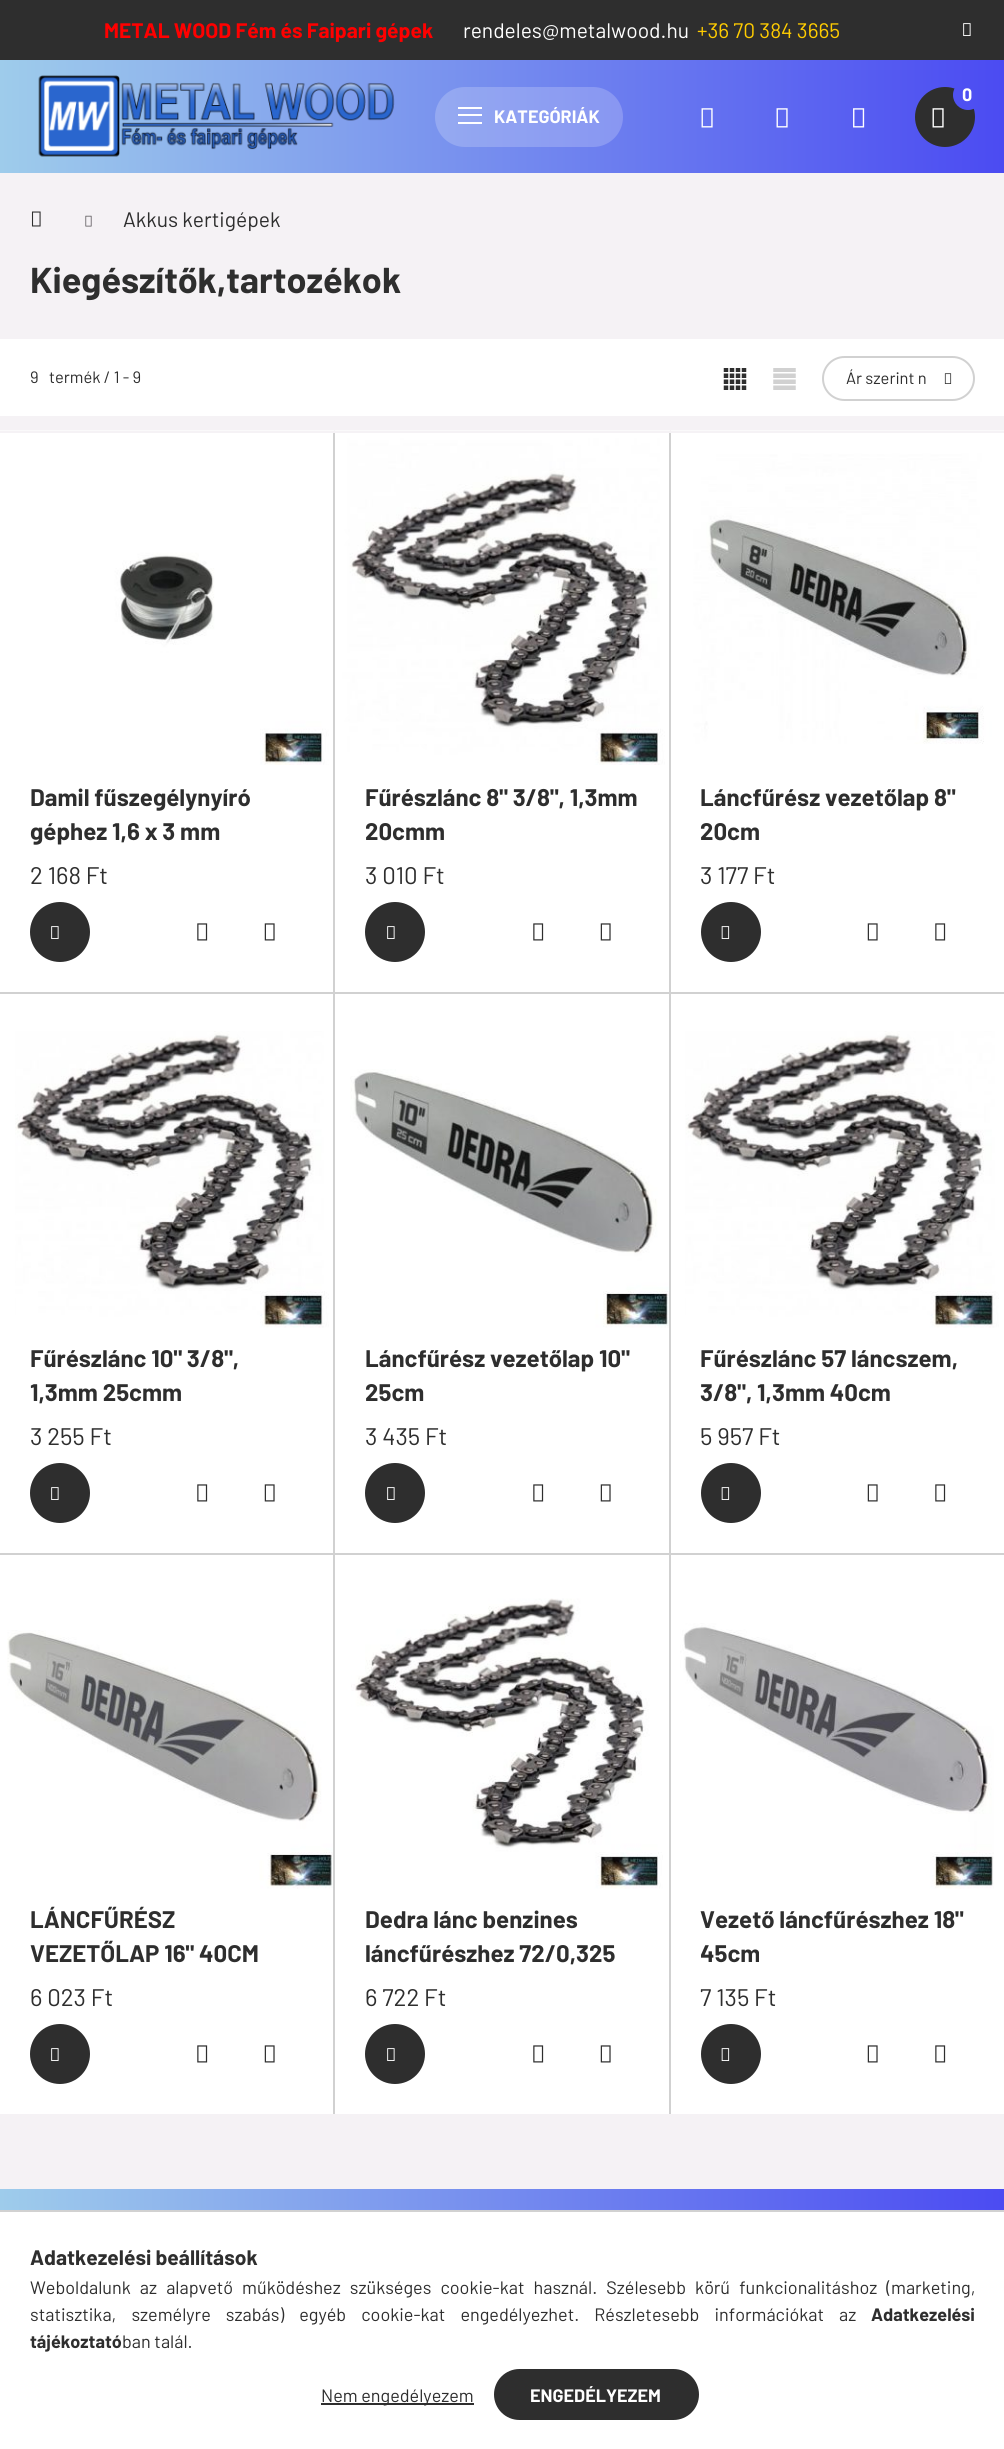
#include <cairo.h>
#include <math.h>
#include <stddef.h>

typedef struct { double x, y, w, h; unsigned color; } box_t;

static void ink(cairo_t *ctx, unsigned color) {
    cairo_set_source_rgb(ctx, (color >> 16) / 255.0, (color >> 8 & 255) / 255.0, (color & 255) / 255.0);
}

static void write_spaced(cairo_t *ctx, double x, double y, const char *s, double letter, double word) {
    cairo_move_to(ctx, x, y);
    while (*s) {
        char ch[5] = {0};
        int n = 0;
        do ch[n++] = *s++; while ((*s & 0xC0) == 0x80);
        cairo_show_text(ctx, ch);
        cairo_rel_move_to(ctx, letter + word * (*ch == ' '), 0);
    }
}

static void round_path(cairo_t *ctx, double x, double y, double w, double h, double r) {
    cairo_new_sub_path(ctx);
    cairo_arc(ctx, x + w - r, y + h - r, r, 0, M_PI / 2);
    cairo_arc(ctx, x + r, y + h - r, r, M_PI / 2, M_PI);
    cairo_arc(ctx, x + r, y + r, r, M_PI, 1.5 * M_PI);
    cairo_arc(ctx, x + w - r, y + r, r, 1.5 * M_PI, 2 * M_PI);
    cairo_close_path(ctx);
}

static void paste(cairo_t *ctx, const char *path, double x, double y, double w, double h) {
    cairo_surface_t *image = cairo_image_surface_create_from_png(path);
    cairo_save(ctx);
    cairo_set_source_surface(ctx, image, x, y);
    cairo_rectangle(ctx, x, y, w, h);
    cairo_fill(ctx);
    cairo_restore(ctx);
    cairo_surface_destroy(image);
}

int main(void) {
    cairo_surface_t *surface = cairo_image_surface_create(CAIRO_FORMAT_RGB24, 1004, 2449);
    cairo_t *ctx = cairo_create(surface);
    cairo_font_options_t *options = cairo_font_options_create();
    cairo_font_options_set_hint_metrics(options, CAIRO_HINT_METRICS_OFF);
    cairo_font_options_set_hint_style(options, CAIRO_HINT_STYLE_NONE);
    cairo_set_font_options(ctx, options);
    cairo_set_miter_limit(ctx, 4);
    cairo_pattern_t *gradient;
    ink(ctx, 0xF5F2F5);
    cairo_paint(ctx);
    ink(ctx, 0x2E2E2E);
    cairo_rectangle(ctx, 0, 0, 1004, 60);
    cairo_fill(ctx);
    cairo_select_font_face(ctx, "Barlow", CAIRO_FONT_SLANT_NORMAL, CAIRO_FONT_WEIGHT_BOLD);
    cairo_set_font_size(ctx, 21);
    ink(ctx, 0xFF0000);
    cairo_move_to(ctx, 104, 38);
    cairo_show_text(ctx, "METAL WOOD Fém és Faipari gépek");
    cairo_select_font_face(ctx, "Barlow", CAIRO_FONT_SLANT_NORMAL, CAIRO_FONT_WEIGHT_NORMAL);
    ink(ctx, 0xFFFFFF);
    cairo_move_to(ctx, 463, 38);
    cairo_show_text(ctx, "rendeles@metalwood.hu");
    ink(ctx, 0xFFCC00);
    cairo_move_to(ctx, 697, 38);
    cairo_show_text(ctx, "+36 70 384 3665");
    paste(ctx, "media/1.png", 963, 23, 8, 13);
    gradient = cairo_pattern_create_linear(0, 1225, 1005, 1225);
    cairo_pattern_add_color_stop_rgba(gradient, 0, 0.62, 0.8, 0.922, 1);
    cairo_pattern_add_color_stop_rgba(gradient, 1, 0.294, 0.294, 0.949, 1);
    cairo_set_source(ctx, gradient);
    cairo_pattern_destroy(gradient);
    cairo_rectangle(ctx, 0, 60, 1004, 113);
    cairo_fill(ctx);
    ink(ctx, 0x2E2E2E);
    cairo_arc(ctx, 945, 117, 30, 0, 2 * M_PI);
    cairo_fill(ctx);
    gradient = cairo_pattern_create_linear(0, 1225, 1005, 1225);
    cairo_pattern_add_color_stop_rgba(gradient, 0, 0.62, 0.8, 0.922, 1);
    cairo_pattern_add_color_stop_rgba(gradient, 1, 0.294, 0.294, 0.949, 1);
    cairo_set_source(ctx, gradient);
    cairo_pattern_destroy(gradient);
    cairo_arc(ctx, 968, 95, 15, 0, 2 * M_PI);
    cairo_fill(ctx);
    cairo_select_font_face(ctx, "Barlow", CAIRO_FONT_SLANT_NORMAL, CAIRO_FONT_WEIGHT_BOLD);
    cairo_set_font_size(ctx, 18);
    ink(ctx, 0xFFFFFF);
    cairo_move_to(ctx, 962, 101);
    cairo_show_text(ctx, "0");
    paste(ctx, "media/2.png", 932, 108, 12, 20);
    paste(ctx, "media/3.png", 701, 108, 12, 20);
    paste(ctx, "media/4.png", 776, 108, 12, 20);
    paste(ctx, "media/5.png", 853, 108, 12, 20);
    paste(ctx, "media/6.png", 38, 75, 357, 82);
    cairo_set_source_rgba(ctx, 1, 1, 1, 0.2);
    round_path(ctx, 435, 87, 188, 60, 30);
    cairo_fill(ctx);
    {
        static const box_t items[] = {
            {458, 107, 24, 2, 0xFFFFFF},
            {458, 114, 24, 2, 0xFFFFFF},
            {458, 122, 24, 2, 0xFFFFFF},
        };
        for (size_t i = 0; i < sizeof items / sizeof *items; i++) {
            ink(ctx, items[i].color);
            cairo_rectangle(ctx, items[i].x, items[i].y, items[i].w, items[i].h);
            cairo_fill(ctx);
        }
    }
    cairo_move_to(ctx, 494, 123);
    cairo_show_text(ctx, "KATEGÓRIÁK");
    paste(ctx, "media/7.png", 31, 211, 10, 16);
    paste(ctx, "media/8.png", 85, 215, 7, 12);
    cairo_select_font_face(ctx, "Barlow", CAIRO_FONT_SLANT_NORMAL, CAIRO_FONT_WEIGHT_NORMAL);
    cairo_set_font_size(ctx, 21);
    ink(ctx, 0x2E2E2E);
    cairo_move_to(ctx, 123, 227);
    cairo_show_text(ctx, "Akkus kertigépek");
    cairo_select_font_face(ctx, "Barlow", CAIRO_FONT_SLANT_NORMAL, CAIRO_FONT_WEIGHT_BOLD);
    cairo_set_font_size(ctx, 36);
    cairo_move_to(ctx, 30, 293);
    cairo_show_text(ctx, "Kiegészítők,tartozékok");
    ink(ctx, 0xFFFFFF);
    cairo_rectangle(ctx, 0, 339, 1004, 77);
    cairo_fill(ctx);
    cairo_select_font_face(ctx, "Barlow", CAIRO_FONT_SLANT_NORMAL, CAIRO_FONT_WEIGHT_NORMAL);
    cairo_set_font_size(ctx, 16.5);
    ink(ctx, 0x2E2E2E);
    cairo_move_to(ctx, 30, 383);
    cairo_show_text(ctx, "9");
    cairo_move_to(ctx, 49, 383);
    cairo_show_text(ctx, "termék / 1 - 9");
    paste(ctx, "media/9.png", 723, 368, 24, 22);
    paste(ctx, "media/10.png", 773, 368, 23, 22);
    round_path(ctx, 823, 357, 151, 43, 21.5);
    ink(ctx, 0xD1D1D1);
    cairo_stroke(ctx);
    ink(ctx, 0x2E2E2E);
    cairo_move_to(ctx, 846, 384);
    cairo_show_text(ctx, "Ár szerint n");
    paste(ctx, "media/11.png", 944, 373, 8, 11);
    paste(ctx, "media/12.png", 0, 430, 334, 335);
    ink(ctx, 0xD1D1D1);
    cairo_rectangle(ctx, 333, 431, 2, 561);
    cairo_fill(ctx);
    paste(ctx, "media/15.png", 335, 430, 335, 335);
    cairo_rectangle(ctx, 669, 431, 2, 561);
    cairo_fill(ctx);
    paste(ctx, "media/16.png", 671, 430, 333, 314);
    ink(ctx, 0xF5F2F5);
    cairo_rectangle(ctx, 0, 431, 1004, 2);
    cairo_fill(ctx);
    ink(ctx, 0xFFFFFF);
    cairo_rectangle(ctx, 0, 765, 333, 227);
    cairo_fill(ctx);
    cairo_select_font_face(ctx, "Barlow", CAIRO_FONT_SLANT_NORMAL, CAIRO_FONT_WEIGHT_BOLD);
    cairo_set_font_size(ctx, 24);
    ink(ctx, 0x2E2E2E);
    cairo_move_to(ctx, 30, 806);
    cairo_show_text(ctx, "Damil fűszegélynyíró");
    cairo_move_to(ctx, 30, 840);
    cairo_show_text(ctx, "géphez 1,6 x 3 mm");
    cairo_select_font_face(ctx, "Barlow", CAIRO_FONT_SLANT_NORMAL, CAIRO_FONT_WEIGHT_NORMAL);
    cairo_move_to(ctx, 30, 884);
    cairo_show_text(ctx, "2 168 Ft");
    gradient = cairo_pattern_create_linear(30, 932, 210, 932);
    cairo_pattern_add_color_stop_rgba(gradient, 0.33, 0.18, 0.18, 0.18, 1);
    cairo_pattern_add_color_stop_rgba(gradient, 0.67, 0.98, 0.392, 0.412, 1);
    cairo_set_source(ctx, gradient);
    cairo_pattern_destroy(gradient);
    cairo_new_path(ctx);
    cairo_arc(ctx, 60, 932, 30, 0, 2 * M_PI);
    cairo_fill(ctx);
    paste(ctx, "media/1.png", 51, 926, 8, 13);
    paste(ctx, "media/13.png", 197, 923, 11, 18);
    paste(ctx, "media/14.png", 264, 923, 11, 18);
    ink(ctx, 0xFFFFFF);
    cairo_rectangle(ctx, 335, 765, 334, 227);
    cairo_fill(ctx);
    cairo_select_font_face(ctx, "Barlow", CAIRO_FONT_SLANT_NORMAL, CAIRO_FONT_WEIGHT_BOLD);
    ink(ctx, 0x2E2E2E);
    cairo_move_to(ctx, 365, 806);
    cairo_show_text(ctx, "Fűrészlánc 8\" 3/8\", 1,3mm");
    cairo_move_to(ctx, 365, 840);
    cairo_show_text(ctx, "20cmm");
    cairo_select_font_face(ctx, "Barlow", CAIRO_FONT_SLANT_NORMAL, CAIRO_FONT_WEIGHT_NORMAL);
    cairo_move_to(ctx, 365, 884);
    cairo_show_text(ctx, "3 010 Ft");
    gradient = cairo_pattern_create_linear(365, 932, 545, 932);
    cairo_pattern_add_color_stop_rgba(gradient, 0.33, 0.18, 0.18, 0.18, 1);
    cairo_pattern_add_color_stop_rgba(gradient, 0.67, 0.98, 0.392, 0.412, 1);
    cairo_set_source(ctx, gradient);
    cairo_pattern_destroy(gradient);
    cairo_new_path(ctx);
    cairo_arc(ctx, 395, 932, 30, 0, 2 * M_PI);
    cairo_fill(ctx);
    paste(ctx, "media/1.png", 387, 926, 8, 13);
    paste(ctx, "media/13.png", 533, 923, 11, 18);
    paste(ctx, "media/14.png", 600, 923, 11, 18);
    ink(ctx, 0xFFFFFF);
    cairo_rectangle(ctx, 671, 744, 333, 248);
    cairo_fill(ctx);
    cairo_select_font_face(ctx, "Barlow", CAIRO_FONT_SLANT_NORMAL, CAIRO_FONT_WEIGHT_BOLD);
    ink(ctx, 0x2E2E2E);
    cairo_move_to(ctx, 700, 806);
    cairo_show_text(ctx, "Láncfűrész vezetőlap 8\"");
    cairo_move_to(ctx, 700, 840);
    cairo_show_text(ctx, "20cm");
    cairo_select_font_face(ctx, "Barlow", CAIRO_FONT_SLANT_NORMAL, CAIRO_FONT_WEIGHT_NORMAL);
    cairo_move_to(ctx, 700, 884);
    cairo_show_text(ctx, "3 177 Ft");
    gradient = cairo_pattern_create_linear(701, 932, 881, 932);
    cairo_pattern_add_color_stop_rgba(gradient, 0.33, 0.18, 0.18, 0.18, 1);
    cairo_pattern_add_color_stop_rgba(gradient, 0.67, 0.98, 0.392, 0.412, 1);
    cairo_set_source(ctx, gradient);
    cairo_pattern_destroy(gradient);
    cairo_new_path(ctx);
    cairo_arc(ctx, 731, 932, 30, 0, 2 * M_PI);
    cairo_fill(ctx);
    paste(ctx, "media/17.png", 721, 926, 9, 13);
    paste(ctx, "media/14.png", 867, 923, 11, 18);
    paste(ctx, "media/13.png", 935, 923, 11, 18);
    ink(ctx, 0xFFFFFF);
    cairo_rectangle(ctx, 0, 994, 333, 559);
    cairo_fill(ctx);
    ink(ctx, 0xD1D1D1);
    cairo_rectangle(ctx, 0, 992, 1004, 2);
    cairo_fill(ctx);
    paste(ctx, "media/18.png", 15, 1031, 314, 297);
    cairo_select_font_face(ctx, "Barlow", CAIRO_FONT_SLANT_NORMAL, CAIRO_FONT_WEIGHT_BOLD);
    ink(ctx, 0x2E2E2E);
    cairo_move_to(ctx, 30, 1367);
    cairo_show_text(ctx, "Fűrészlánc 10\" 3/8\",");
    cairo_move_to(ctx, 30, 1401);
    cairo_show_text(ctx, "1,3mm 25cmm");
    cairo_select_font_face(ctx, "Barlow", CAIRO_FONT_SLANT_NORMAL, CAIRO_FONT_WEIGHT_NORMAL);
    cairo_move_to(ctx, 30, 1445);
    cairo_show_text(ctx, "3 255 Ft");
    gradient = cairo_pattern_create_linear(30, 1493, 210, 1493);
    cairo_pattern_add_color_stop_rgba(gradient, 0.33, 0.18, 0.18, 0.18, 1);
    cairo_pattern_add_color_stop_rgba(gradient, 0.67, 0.98, 0.392, 0.412, 1);
    cairo_set_source(ctx, gradient);
    cairo_pattern_destroy(gradient);
    cairo_new_path(ctx);
    cairo_arc(ctx, 60, 1493, 30, 0, 2 * M_PI);
    cairo_fill(ctx);
    paste(ctx, "media/1.png", 51, 1487, 8, 13);
    paste(ctx, "media/13.png", 197, 1484, 11, 18);
    paste(ctx, "media/14.png", 264, 1484, 11, 18);
    ink(ctx, 0xD1D1D1);
    cairo_rectangle(ctx, 333, 992, 2, 561);
    cairo_fill(ctx);
    ink(ctx, 0xFFFFFF);
    cairo_rectangle(ctx, 335, 994, 334, 559);
    cairo_fill(ctx);
    paste(ctx, "media/19.png", 350, 1069, 319, 259);
    cairo_select_font_face(ctx, "Barlow", CAIRO_FONT_SLANT_NORMAL, CAIRO_FONT_WEIGHT_BOLD);
    ink(ctx, 0x2E2E2E);
    cairo_move_to(ctx, 365, 1367);
    cairo_show_text(ctx, "Láncfűrész vezetőlap 10\"");
    cairo_move_to(ctx, 365, 1401);
    cairo_show_text(ctx, "25cm");
    cairo_select_font_face(ctx, "Barlow", CAIRO_FONT_SLANT_NORMAL, CAIRO_FONT_WEIGHT_NORMAL);
    cairo_move_to(ctx, 365, 1445);
    cairo_show_text(ctx, "3 435 Ft");
    gradient = cairo_pattern_create_linear(365, 1493, 545, 1493);
    cairo_pattern_add_color_stop_rgba(gradient, 0.33, 0.18, 0.18, 0.18, 1);
    cairo_pattern_add_color_stop_rgba(gradient, 0.67, 0.98, 0.392, 0.412, 1);
    cairo_set_source(ctx, gradient);
    cairo_pattern_destroy(gradient);
    cairo_new_path(ctx);
    cairo_arc(ctx, 395, 1493, 30, 0, 2 * M_PI);
    cairo_fill(ctx);
    paste(ctx, "media/1.png", 387, 1487, 8, 13);
    paste(ctx, "media/13.png", 533, 1484, 11, 18);
    paste(ctx, "media/14.png", 600, 1484, 11, 18);
    ink(ctx, 0xD1D1D1);
    cairo_rectangle(ctx, 669, 992, 2, 561);
    cairo_fill(ctx);
    ink(ctx, 0xFFFFFF);
    cairo_rectangle(ctx, 671, 994, 333, 559);
    cairo_fill(ctx);
    paste(ctx, "media/20.png", 685, 1031, 314, 297);
    cairo_select_font_face(ctx, "Barlow", CAIRO_FONT_SLANT_NORMAL, CAIRO_FONT_WEIGHT_BOLD);
    ink(ctx, 0x2E2E2E);
    cairo_move_to(ctx, 700, 1367);
    cairo_show_text(ctx, "Fűrészlánc 57 láncszem,");
    cairo_move_to(ctx, 700, 1401);
    cairo_show_text(ctx, "3/8\", 1,3mm 40cm");
    cairo_select_font_face(ctx, "Barlow", CAIRO_FONT_SLANT_NORMAL, CAIRO_FONT_WEIGHT_NORMAL);
    cairo_move_to(ctx, 700, 1445);
    cairo_show_text(ctx, "5 957 Ft");
    gradient = cairo_pattern_create_linear(701, 1493, 881, 1493);
    cairo_pattern_add_color_stop_rgba(gradient, 0.33, 0.18, 0.18, 0.18, 1);
    cairo_pattern_add_color_stop_rgba(gradient, 0.67, 0.98, 0.392, 0.412, 1);
    cairo_set_source(ctx, gradient);
    cairo_pattern_destroy(gradient);
    cairo_new_path(ctx);
    cairo_arc(ctx, 731, 1493, 30, 0, 2 * M_PI);
    cairo_fill(ctx);
    paste(ctx, "media/17.png", 721, 1487, 9, 13);
    paste(ctx, "media/14.png", 867, 1484, 11, 18);
    paste(ctx, "media/13.png", 935, 1484, 11, 18);
    ink(ctx, 0xFFFFFF);
    cairo_rectangle(ctx, 0, 1555, 333, 559);
    cairo_fill(ctx);
    ink(ctx, 0xD1D1D1);
    cairo_rectangle(ctx, 0, 1553, 1004, 2);
    cairo_fill(ctx);
    paste(ctx, "media/21.png", 7, 1630, 326, 259);
    cairo_select_font_face(ctx, "Barlow", CAIRO_FONT_SLANT_NORMAL, CAIRO_FONT_WEIGHT_BOLD);
    ink(ctx, 0x2E2E2E);
    cairo_move_to(ctx, 30, 1928);
    cairo_show_text(ctx, "LÁNCFŰRÉSZ");
    cairo_move_to(ctx, 30, 1962);
    cairo_show_text(ctx, "VEZETŐLAP 16\" 40CM");
    cairo_select_font_face(ctx, "Barlow", CAIRO_FONT_SLANT_NORMAL, CAIRO_FONT_WEIGHT_NORMAL);
    cairo_move_to(ctx, 30, 2006);
    cairo_show_text(ctx, "6 023 Ft");
    gradient = cairo_pattern_create_linear(30, 2054, 210, 2054);
    cairo_pattern_add_color_stop_rgba(gradient, 0.33, 0.18, 0.18, 0.18, 1);
    cairo_pattern_add_color_stop_rgba(gradient, 0.67, 0.98, 0.392, 0.412, 1);
    cairo_set_source(ctx, gradient);
    cairo_pattern_destroy(gradient);
    cairo_new_path(ctx);
    cairo_arc(ctx, 60, 2054, 30, 0, 2 * M_PI);
    cairo_fill(ctx);
    paste(ctx, "media/1.png", 51, 2048, 8, 13);
    paste(ctx, "media/13.png", 197, 2045, 11, 18);
    paste(ctx, "media/14.png", 264, 2045, 11, 18);
    ink(ctx, 0xD1D1D1);
    cairo_rectangle(ctx, 333, 1553, 2, 561);
    cairo_fill(ctx);
    ink(ctx, 0xFFFFFF);
    cairo_rectangle(ctx, 335, 1555, 334, 559);
    cairo_fill(ctx);
    paste(ctx, "media/22.png", 351, 1598, 312, 291);
    cairo_select_font_face(ctx, "Barlow", CAIRO_FONT_SLANT_NORMAL, CAIRO_FONT_WEIGHT_BOLD);
    ink(ctx, 0x2E2E2E);
    cairo_move_to(ctx, 365, 1928);
    cairo_show_text(ctx, "Dedra lánc benzines");
    cairo_move_to(ctx, 365, 1962);
    cairo_show_text(ctx, "láncfűrészhez 72/0,325");
    cairo_select_font_face(ctx, "Barlow", CAIRO_FONT_SLANT_NORMAL, CAIRO_FONT_WEIGHT_NORMAL);
    cairo_move_to(ctx, 365, 2006);
    cairo_show_text(ctx, "6 722 Ft");
    gradient = cairo_pattern_create_linear(365, 2054, 545, 2054);
    cairo_pattern_add_color_stop_rgba(gradient, 0.33, 0.18, 0.18, 0.18, 1);
    cairo_pattern_add_color_stop_rgba(gradient, 0.67, 0.98, 0.392, 0.412, 1);
    cairo_set_source(ctx, gradient);
    cairo_pattern_destroy(gradient);
    cairo_new_path(ctx);
    cairo_arc(ctx, 395, 2054, 30, 0, 2 * M_PI);
    cairo_fill(ctx);
    paste(ctx, "media/1.png", 387, 2048, 8, 13);
    paste(ctx, "media/13.png", 533, 2045, 11, 18);
    paste(ctx, "media/14.png", 600, 2045, 11, 18);
    ink(ctx, 0xD1D1D1);
    cairo_rectangle(ctx, 669, 1553, 2, 561);
    cairo_fill(ctx);
    ink(ctx, 0xFFFFFF);
    cairo_rectangle(ctx, 671, 1555, 333, 559);
    cairo_fill(ctx);
    paste(ctx, "media/23.png", 680, 1623, 314, 266);
    cairo_select_font_face(ctx, "Barlow", CAIRO_FONT_SLANT_NORMAL, CAIRO_FONT_WEIGHT_BOLD);
    ink(ctx, 0x2E2E2E);
    cairo_move_to(ctx, 700, 1928);
    cairo_show_text(ctx, "Vezető láncfűrészhez 18\"");
    cairo_save(ctx);
    cairo_rectangle(ctx, 701, 1904, 274, 66);
    cairo_clip(ctx);
    cairo_move_to(ctx, 700, 1962);
    cairo_show_text(ctx, "45cm");
    cairo_restore(ctx);
    cairo_select_font_face(ctx, "Barlow", CAIRO_FONT_SLANT_NORMAL, CAIRO_FONT_WEIGHT_NORMAL);
    cairo_move_to(ctx, 700, 2006);
    cairo_show_text(ctx, "7 135 Ft");
    gradient = cairo_pattern_create_linear(701, 2054, 881, 2054);
    cairo_pattern_add_color_stop_rgba(gradient, 0.33, 0.18, 0.18, 0.18, 1);
    cairo_pattern_add_color_stop_rgba(gradient, 0.67, 0.98, 0.392, 0.412, 1);
    cairo_set_source(ctx, gradient);
    cairo_pattern_destroy(gradient);
    cairo_new_path(ctx);
    cairo_arc(ctx, 731, 2054, 30, 0, 2 * M_PI);
    cairo_fill(ctx);
    paste(ctx, "media/17.png", 721, 2048, 9, 13);
    paste(ctx, "media/14.png", 867, 2045, 11, 18);
    paste(ctx, "media/13.png", 935, 2045, 11, 18);
    gradient = cairo_pattern_create_linear(0, 1225, 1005, 1225);
    cairo_pattern_add_color_stop_rgba(gradient, 0, 0.62, 0.8, 0.922, 1);
    cairo_pattern_add_color_stop_rgba(gradient, 1, 0.294, 0.294, 0.949, 1);
    cairo_set_source(ctx, gradient);
    cairo_pattern_destroy(gradient);
    cairo_rectangle(ctx, 0, 2189, 1004, 21);
    cairo_fill(ctx);
    ink(ctx, 0xFFFFFF);
    cairo_rectangle(ctx, 0, 2212, 1004, 237);
    cairo_fill(ctx);
    ink(ctx, 0xD1D1D1);
    cairo_rectangle(ctx, 0, 2210, 1004, 2);
    cairo_fill(ctx);
    cairo_select_font_face(ctx, "Barlow", CAIRO_FONT_SLANT_NORMAL, CAIRO_FONT_WEIGHT_BOLD);
    cairo_set_font_size(ctx, 21);
    ink(ctx, 0x2E2E2E);
    cairo_move_to(ctx, 30, 2265);
    cairo_show_text(ctx, "Adatkezelési beállítások");
    cairo_select_font_face(ctx, "Barlow", CAIRO_FONT_SLANT_NORMAL, CAIRO_FONT_WEIGHT_NORMAL);
    cairo_set_font_size(ctx, 18);
    write_spaced(ctx, 30, 2294, "Weboldalunk az alapvető működéshez szükséges cookie-kat használ. Szélesebb körű funkcionalitáshoz (marketing,", 0, 5.5);
    write_spaced(ctx, 30, 2321, "statisztika, személyre szabás) egyéb cookie-kat engedélyezhet. Részletesebb információkat az", 0, 11.5);
    cairo_select_font_face(ctx, "Barlow", CAIRO_FONT_SLANT_NORMAL, CAIRO_FONT_WEIGHT_BOLD);
    cairo_move_to(ctx, 871, 2321);
    cairo_show_text(ctx, "Adatkezelési");
    cairo_move_to(ctx, 30, 2348);
    cairo_show_text(ctx, "tájékoztató");
    cairo_select_font_face(ctx, "Barlow", CAIRO_FONT_SLANT_NORMAL, CAIRO_FONT_WEIGHT_NORMAL);
    cairo_move_to(ctx, 122, 2348);
    cairo_show_text(ctx, "ban talál.");
    cairo_rectangle(ctx, 321, 2403, 153, 2);
    cairo_fill(ctx);
    cairo_move_to(ctx, 321, 2402);
    cairo_show_text(ctx, "Nem engedélyezem");
    gradient = cairo_pattern_create_linear(494, 2394, 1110, 2394);
    cairo_pattern_add_color_stop_rgba(gradient, 0.33, 0.18, 0.18, 0.18, 1);
    cairo_pattern_add_color_stop_rgba(gradient, 0.67, 0.98, 0.392, 0.412, 1);
    cairo_set_source(ctx, gradient);
    cairo_pattern_destroy(gradient);
    round_path(ctx, 494, 2369, 205, 51, 25.5);
    cairo_fill(ctx);
    cairo_select_font_face(ctx, "Barlow", CAIRO_FONT_SLANT_NORMAL, CAIRO_FONT_WEIGHT_BOLD);
    ink(ctx, 0xFFFFFF);
    cairo_move_to(ctx, 530, 2402);
    cairo_show_text(ctx, "ENGEDÉLYEZEM");
    cairo_surface_write_to_png(surface, "image.png");
    cairo_font_options_destroy(options);
    cairo_destroy(ctx);
    cairo_surface_destroy(surface);
    return 0;
}
